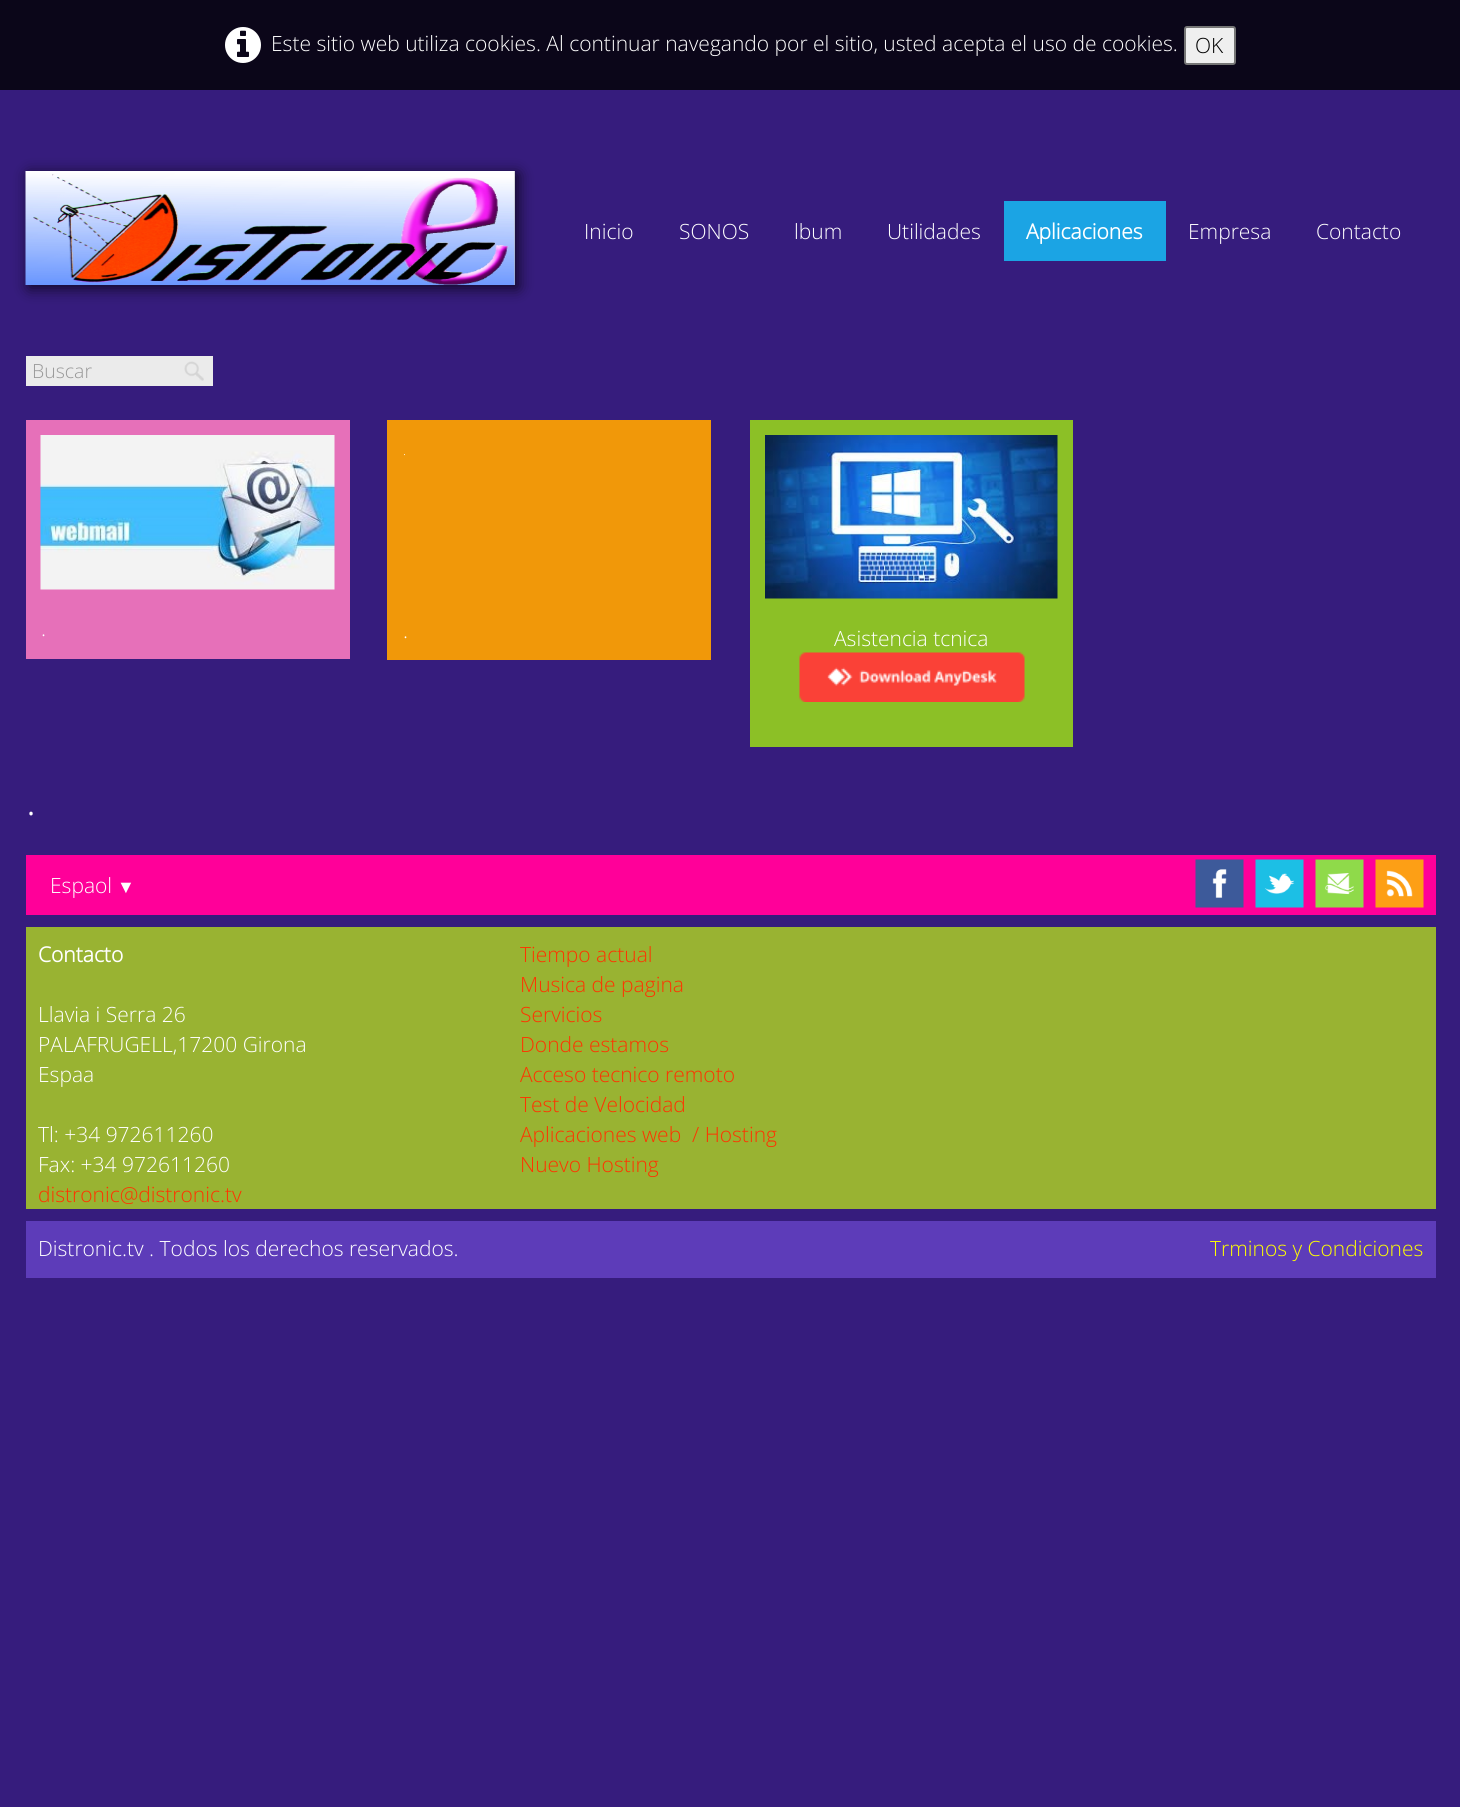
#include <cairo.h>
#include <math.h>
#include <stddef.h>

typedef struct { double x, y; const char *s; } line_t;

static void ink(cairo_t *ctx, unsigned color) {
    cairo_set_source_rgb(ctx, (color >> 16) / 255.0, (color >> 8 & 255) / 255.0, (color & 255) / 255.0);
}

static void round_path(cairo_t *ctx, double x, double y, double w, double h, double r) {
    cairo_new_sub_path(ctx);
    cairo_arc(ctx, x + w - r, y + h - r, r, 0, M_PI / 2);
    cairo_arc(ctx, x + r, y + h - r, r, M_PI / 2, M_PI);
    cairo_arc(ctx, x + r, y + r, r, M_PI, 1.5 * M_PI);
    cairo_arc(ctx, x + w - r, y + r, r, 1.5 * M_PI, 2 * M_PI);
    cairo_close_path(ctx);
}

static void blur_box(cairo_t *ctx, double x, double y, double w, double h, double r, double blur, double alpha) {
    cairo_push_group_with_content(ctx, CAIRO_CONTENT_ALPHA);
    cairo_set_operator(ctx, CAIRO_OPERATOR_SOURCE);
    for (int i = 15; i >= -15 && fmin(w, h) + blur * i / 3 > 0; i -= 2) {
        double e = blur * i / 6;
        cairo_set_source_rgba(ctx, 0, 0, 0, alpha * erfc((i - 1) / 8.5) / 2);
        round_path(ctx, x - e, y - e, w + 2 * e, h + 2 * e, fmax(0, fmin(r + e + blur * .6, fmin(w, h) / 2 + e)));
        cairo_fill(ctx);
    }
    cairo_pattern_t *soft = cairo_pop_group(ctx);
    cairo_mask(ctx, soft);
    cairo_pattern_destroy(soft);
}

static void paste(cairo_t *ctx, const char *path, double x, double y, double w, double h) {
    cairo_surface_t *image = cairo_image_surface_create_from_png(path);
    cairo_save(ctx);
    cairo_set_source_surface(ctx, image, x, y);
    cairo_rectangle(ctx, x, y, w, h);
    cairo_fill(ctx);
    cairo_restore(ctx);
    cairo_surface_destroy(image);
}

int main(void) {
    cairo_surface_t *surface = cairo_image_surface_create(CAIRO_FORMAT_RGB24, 1460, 1807);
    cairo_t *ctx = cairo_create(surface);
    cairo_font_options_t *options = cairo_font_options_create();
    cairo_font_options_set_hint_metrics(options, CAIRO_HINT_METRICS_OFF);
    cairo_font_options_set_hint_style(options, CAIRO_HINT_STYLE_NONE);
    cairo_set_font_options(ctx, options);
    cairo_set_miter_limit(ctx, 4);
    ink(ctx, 0x361C7D);
    cairo_paint(ctx);
    ink(ctx, 0x0B0619);
    cairo_rectangle(ctx, 0, 0, 1460, 90);
    cairo_fill(ctx);
    paste(ctx, "media/1.png", 225, 27, 36, 36);
    cairo_select_font_face(ctx, "Open Sans Light", CAIRO_FONT_SLANT_NORMAL, CAIRO_FONT_WEIGHT_NORMAL);
    cairo_set_font_size(ctx, 21);
    ink(ctx, 0xFFFFFF);
    cairo_move_to(ctx, 271, 51);
    cairo_show_text(ctx, "Este sitio web utiliza cookies. Al continuar navegando por el sitio, usted acepta el uso de cookies.");
    ink(ctx, 0xEFEFEF);
    round_path(ctx, 1185, 27, 50, 37, 2);
    cairo_fill_preserve(ctx);
    ink(ctx, 0x767676);
    cairo_stroke(ctx);
    ink(ctx, 0x000000);
    cairo_move_to(ctx, 1195, 53);
    cairo_show_text(ctx, "OK");
    ink(ctx, 0x000000);
    blur_box(ctx, 29, 174, 489, 114, 0, 7.5, 0.75);
    ink(ctx, 0xB5B5B5);
    cairo_rectangle(ctx, 514, 171, 1, 114);
    cairo_fill(ctx);
    paste(ctx, "media/2.png", 25, 171, 490, 114);
    ink(ctx, 0xFFFFFF);
    {
        static const line_t items[] = {
            {584, 239, "Inicio"},
            {679, 239, "SONOS"},
            {794, 239, "lbum"},
            {887, 239, "Utilidades"},
        };
        for (size_t i = 0; i < sizeof items / sizeof *items; i++) {
            cairo_move_to(ctx, items[i].x, items[i].y);
            cairo_show_text(ctx, items[i].s);
        }
    }
    ink(ctx, 0x1BA4E4);
    cairo_rectangle(ctx, 1004, 201, 162, 60);
    cairo_fill(ctx);
    cairo_select_font_face(ctx, "Open Sans", CAIRO_FONT_SLANT_NORMAL, CAIRO_FONT_WEIGHT_BOLD);
    ink(ctx, 0xFFFFFF);
    cairo_move_to(ctx, 1026, 239);
    cairo_show_text(ctx, "Aplicaciones");
    cairo_select_font_face(ctx, "Open Sans Light", CAIRO_FONT_SLANT_NORMAL, CAIRO_FONT_WEIGHT_NORMAL);
    cairo_move_to(ctx, 1188, 239);
    cairo_show_text(ctx, "Empresa");
    cairo_move_to(ctx, 1316, 239);
    cairo_show_text(ctx, "Contacto");
    ink(ctx, 0xEBEBEB);
    cairo_rectangle(ctx, 26, 356, 187, 30);
    cairo_fill(ctx);
    paste(ctx, "media/3.png", 184, 361, 20, 20);
    cairo_set_font_size(ctx, 19.5);
    ink(ctx, 0x999999);
    cairo_move_to(ctx, 32, 378);
    cairo_show_text(ctx, "Buscar");
    ink(ctx, 0xE670B9);
    cairo_rectangle(ctx, 26, 420, 324, 239);
    cairo_fill(ctx);
    paste(ctx, "media/4.png", 40, 435, 295, 155);
    cairo_set_font_size(ctx, 21);
    ink(ctx, 0xFFFFFF);
    cairo_move_to(ctx, 41, 636);
    cairo_show_text(ctx, ".");
    ink(ctx, 0xF19809);
    cairo_rectangle(ctx, 387, 420, 324, 240);
    cairo_fill(ctx);
    cairo_set_font_size(ctx, 12);
    ink(ctx, 0xFFFFFF);
    cairo_move_to(ctx, 403, 455);
    cairo_show_text(ctx, ".");
    cairo_set_font_size(ctx, 21);
    cairo_move_to(ctx, 403, 638);
    cairo_show_text(ctx, ".");
    ink(ctx, 0x8CC026);
    cairo_rectangle(ctx, 750, 420, 323, 327);
    cairo_fill(ctx);
    paste(ctx, "media/5.png", 765, 435, 293, 164);
    ink(ctx, 0xFFFFFF);
    cairo_move_to(ctx, 834, 646);
    cairo_show_text(ctx, "Asistencia tcnica");
    paste(ctx, "media/6.png", 799, 652, 226, 50);
    cairo_set_font_size(ctx, 42);
    cairo_move_to(ctx, 26, 815);
    cairo_show_text(ctx, ".");
    ink(ctx, 0xFF0099);
    cairo_rectangle(ctx, 26, 855, 1410, 60);
    cairo_fill(ctx);
    cairo_set_font_size(ctx, 21);
    ink(ctx, 0xFFFFFF);
    cairo_move_to(ctx, 50, 893);
    cairo_show_text(ctx, "Espaol");
    cairo_select_font_face(ctx, "Liberation Serif", CAIRO_FONT_SLANT_NORMAL, CAIRO_FONT_WEIGHT_NORMAL);
    cairo_set_font_size(ctx, 18);
    cairo_move_to(ctx, 117, 893);
    cairo_show_text(ctx, "▼");
    paste(ctx, "media/7.png", 1195, 859, 49, 49);
    paste(ctx, "media/8.png", 1255, 859, 49, 49);
    paste(ctx, "media/9.png", 1315, 859, 49, 49);
    paste(ctx, "media/10.png", 1375, 859, 49, 49);
    ink(ctx, 0x99B332);
    cairo_rectangle(ctx, 26, 927, 1410, 282);
    cairo_fill(ctx);
    cairo_select_font_face(ctx, "Open Sans", CAIRO_FONT_SLANT_NORMAL, CAIRO_FONT_WEIGHT_BOLD);
    cairo_set_font_size(ctx, 21);
    ink(ctx, 0xFFFFFF);
    cairo_move_to(ctx, 38, 962);
    cairo_show_text(ctx, "Contacto");
    cairo_select_font_face(ctx, "Open Sans Light", CAIRO_FONT_SLANT_NORMAL, CAIRO_FONT_WEIGHT_NORMAL);
    {
        static const line_t items[] = {
            {38, 1022, "Llavia i Serra 26"},
            {38, 1052, "PALAFRUGELL,17200 Girona"},
            {38, 1082, "Espaa"},
            {38, 1142, "Tl: +34 972611260"},
            {38, 1172, "Fax: +34 972611260"},
        };
        for (size_t i = 0; i < sizeof items / sizeof *items; i++) {
            cairo_move_to(ctx, items[i].x, items[i].y);
            cairo_show_text(ctx, items[i].s);
        }
    }
    ink(ctx, 0xFF3300);
    {
        static const line_t items[] = {
            {38, 1202, "distronic@distronic.tv"},
            {520, 962, "Tiempo actual"},
            {520, 992, "Musica de pagina"},
            {520, 1022, "Servicios"},
            {520, 1052, "Donde estamos"},
            {520, 1082, "Acceso tecnico remoto"},
            {520, 1112, "Test de Velocidad"},
            {520, 1142, "Aplicaciones web  / Hosting"},
            {520, 1172, "Nuevo Hosting"},
        };
        for (size_t i = 0; i < sizeof items / sizeof *items; i++) {
            cairo_move_to(ctx, items[i].x, items[i].y);
            cairo_show_text(ctx, items[i].s);
        }
    }
    ink(ctx, 0x5D3CB9);
    cairo_rectangle(ctx, 26, 1221, 1410, 57);
    cairo_fill(ctx);
    ink(ctx, 0xFFFFFF);
    cairo_move_to(ctx, 38, 1256);
    cairo_show_text(ctx, "Distronic.tv . Todos los derechos reservados.");
    ink(ctx, 0xFFFF00);
    cairo_move_to(ctx, 1210, 1256);
    cairo_show_text(ctx, "Trminos y Condiciones");
    cairo_surface_write_to_png(surface, "image.png");
    cairo_font_options_destroy(options);
    cairo_destroy(ctx);
    cairo_surface_destroy(surface);
    return 0;
}
